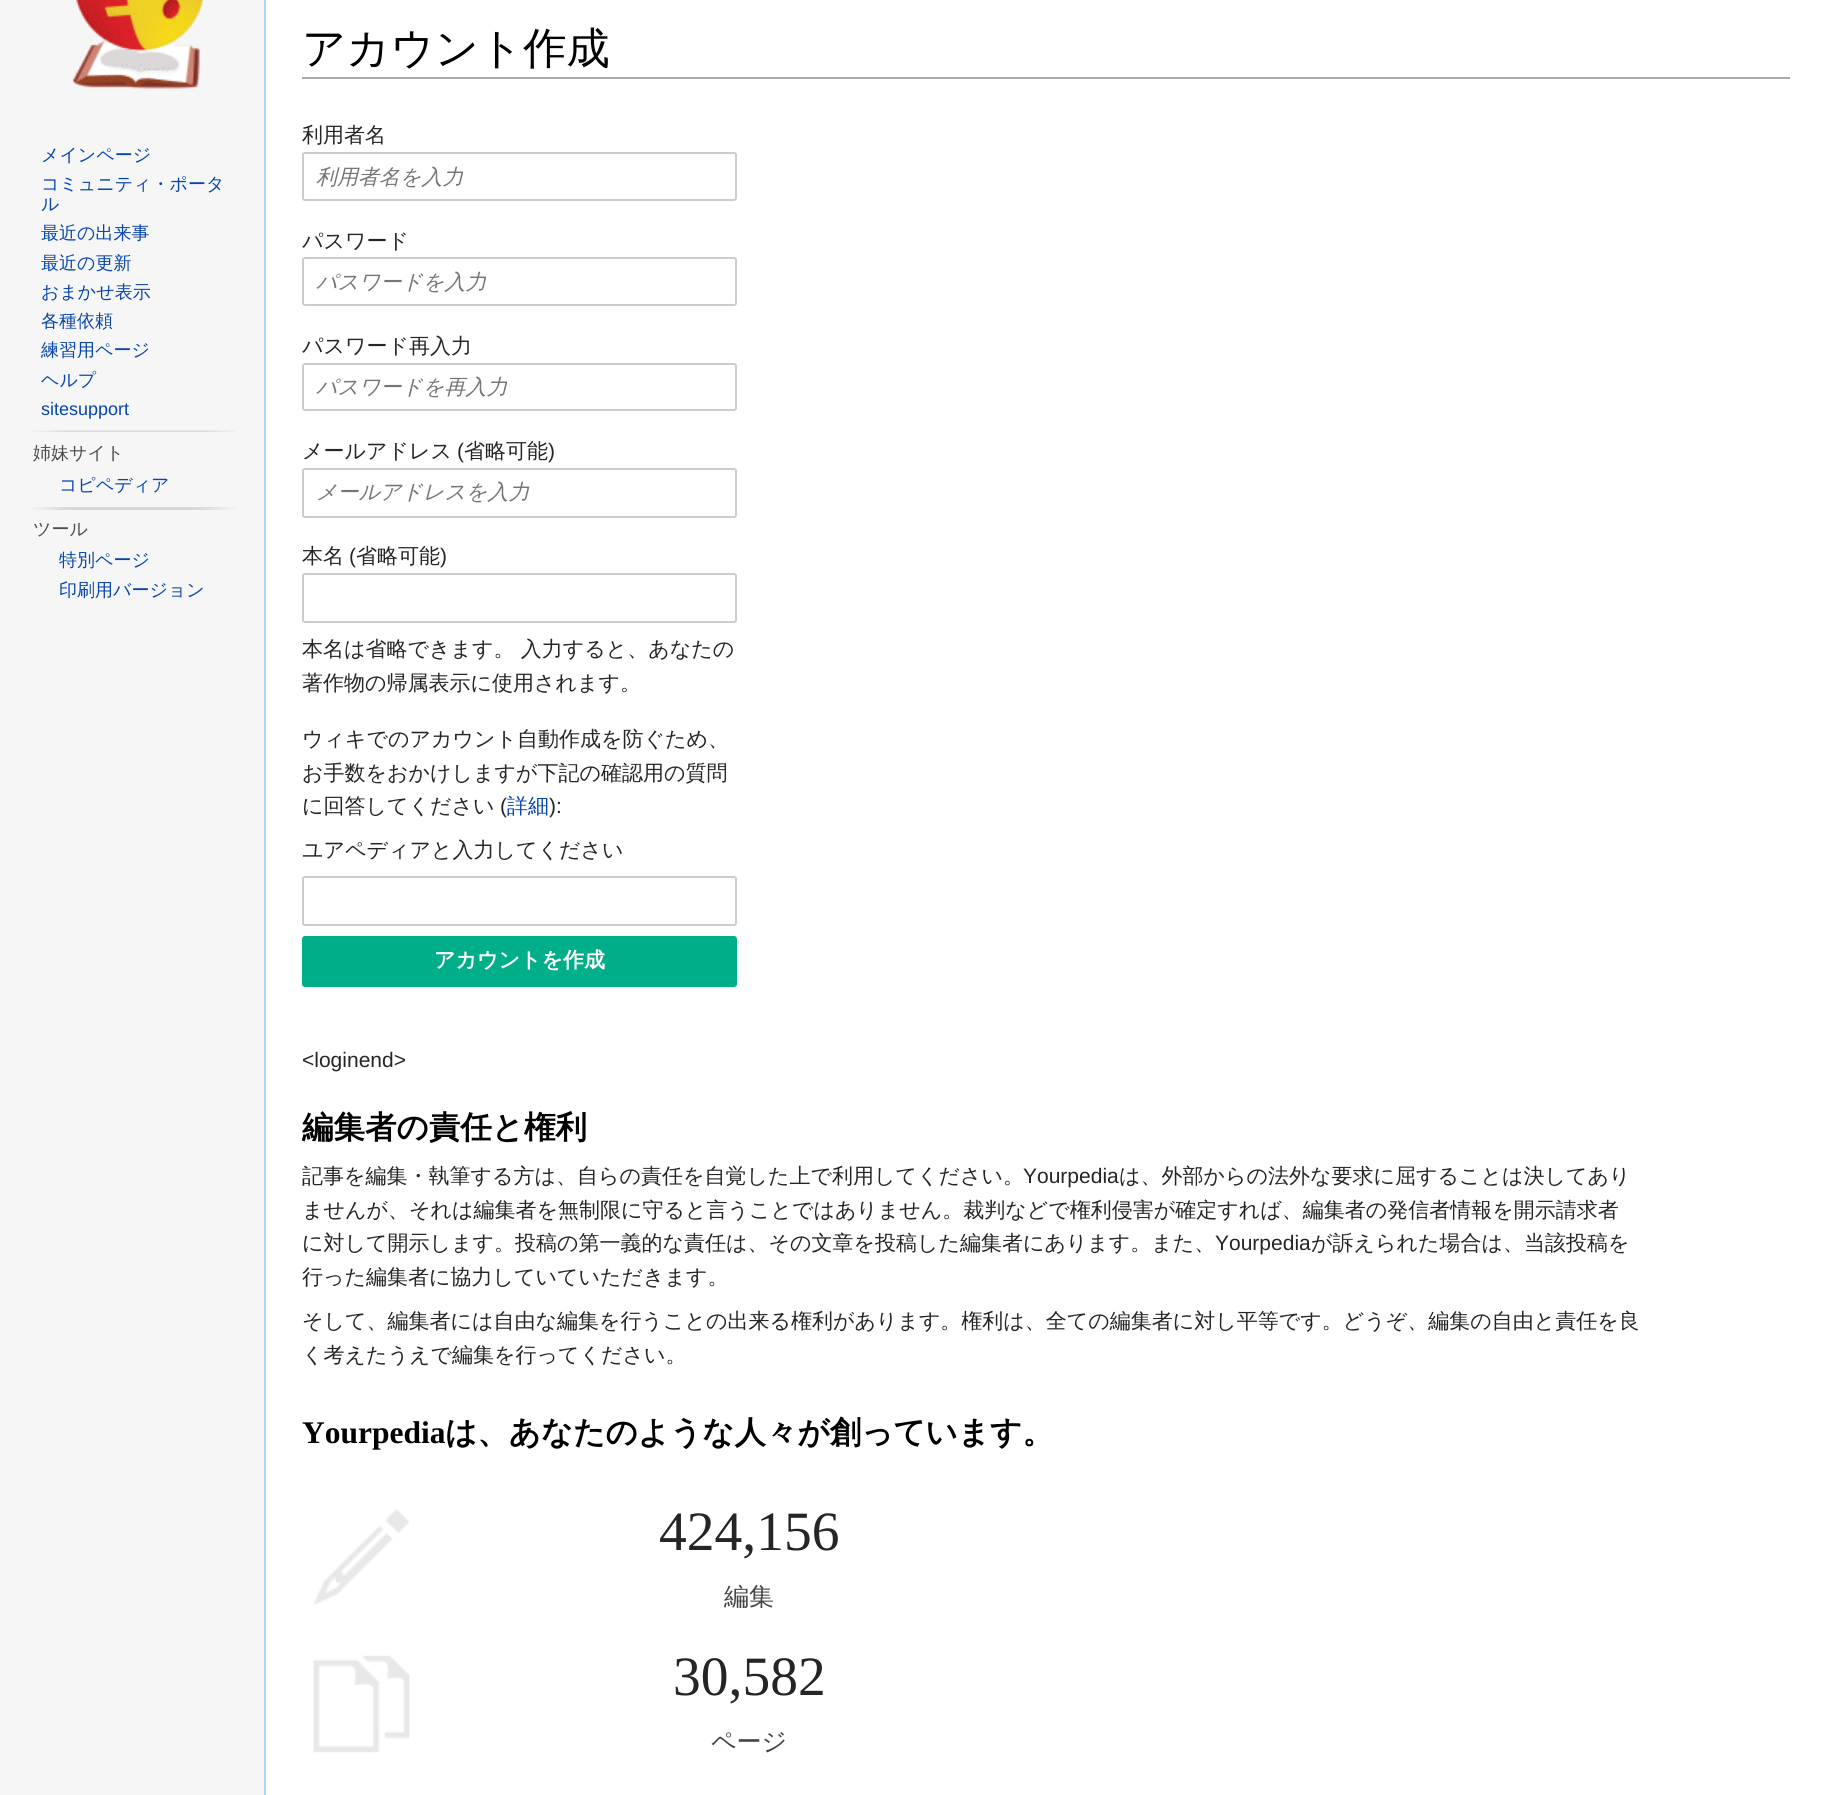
#include <cairo.h>
#include <math.h>
#include <stddef.h>

typedef struct { double x, y; const char *s; } line_t;
typedef struct { double x, y, w, h; unsigned color; } box_t;

static void ink(cairo_t *ctx, unsigned color) {
    cairo_set_source_rgb(ctx, (color >> 16) / 255.0, (color >> 8 & 255) / 255.0, (color & 255) / 255.0);
}

static void round_path(cairo_t *ctx, double x, double y, double w, double h, double r) {
    cairo_new_sub_path(ctx);
    cairo_arc(ctx, x + w - r, y + h - r, r, 0, M_PI / 2);
    cairo_arc(ctx, x + r, y + h - r, r, M_PI / 2, M_PI);
    cairo_arc(ctx, x + r, y + r, r, M_PI, 1.5 * M_PI);
    cairo_arc(ctx, x + w - r, y + r, r, 1.5 * M_PI, 2 * M_PI);
    cairo_close_path(ctx);
}

static void paste(cairo_t *ctx, const char *path, double x, double y, double w, double h) {
    cairo_surface_t *image = cairo_image_surface_create_from_png(path);
    cairo_save(ctx);
    cairo_set_source_surface(ctx, image, x, y);
    cairo_rectangle(ctx, x, y, w, h);
    cairo_fill(ctx);
    cairo_restore(ctx);
    cairo_surface_destroy(image);
}

int main(void) {
    cairo_surface_t *surface = cairo_image_surface_create(CAIRO_FORMAT_RGB24, 1825, 1795);
    cairo_t *ctx = cairo_create(surface);
    cairo_font_options_t *options = cairo_font_options_create();
    cairo_font_options_set_hint_metrics(options, CAIRO_HINT_METRICS_OFF);
    cairo_font_options_set_hint_style(options, CAIRO_HINT_STYLE_NONE);
    cairo_set_font_options(ctx, options);
    cairo_set_miter_limit(ctx, 4);
    ink(ctx, 0xF6F6F6);
    cairo_paint(ctx);
    paste(ctx, "media/1.png", 72, 0, 132, 89);
    cairo_select_font_face(ctx, "WenQuanYi Zen Hei Medium", CAIRO_FONT_SLANT_NORMAL, CAIRO_FONT_WEIGHT_NORMAL);
    cairo_set_font_size(ctx, 18);
    ink(ctx, 0x0645AD);
    {
        static const line_t items[] = {
            {41, 161, "メインページ"},
            {41, 190, "コミュニティ・ポータ"},
            {41, 210, "ル"},
            {41, 239, "最近の出来事"},
            {41, 269, "最近の更新"},
            {41, 298, "おまかせ表示"},
            {41, 327, "各種依頼"},
            {41, 356, "練習用ページ"},
            {41, 386, "ヘルプ"},
        };
        for (size_t i = 0; i < sizeof items / sizeof *items; i++) {
            cairo_move_to(ctx, items[i].x, items[i].y);
            cairo_show_text(ctx, items[i].s);
        }
    }
    cairo_select_font_face(ctx, "Liberation Sans", CAIRO_FONT_SLANT_NORMAL, CAIRO_FONT_WEIGHT_NORMAL);
    cairo_move_to(ctx, 41, 415);
    cairo_show_text(ctx, "sitesupport");
    paste(ctx, "media/2.png", 32, 430, 204, 2);
    cairo_select_font_face(ctx, "WenQuanYi Zen Hei Medium", CAIRO_FONT_SLANT_NORMAL, CAIRO_FONT_WEIGHT_NORMAL);
    ink(ctx, 0x4D4D4D);
    cairo_move_to(ctx, 33, 459);
    cairo_show_text(ctx, "姉妹サイト");
    ink(ctx, 0x0645AD);
    cairo_move_to(ctx, 59, 491);
    cairo_show_text(ctx, "コピペディア");
    paste(ctx, "media/3.png", 32, 507, 204, 3);
    ink(ctx, 0x4D4D4D);
    cairo_move_to(ctx, 33, 535);
    cairo_show_text(ctx, "ツール");
    ink(ctx, 0x0645AD);
    cairo_move_to(ctx, 59, 566);
    cairo_show_text(ctx, "特別ページ");
    cairo_move_to(ctx, 59, 596);
    cairo_show_text(ctx, "印刷用バージョン");
    {
        static const box_t items[] = {
            {266, 0, 1559, 1795, 0xFFFFFF},
            {264, 0, 2, 1795, 0xA7D7F9},
            {302, 77, 1488, 2, 0xAAAAAA},
        };
        for (size_t i = 0; i < sizeof items / sizeof *items; i++) {
            ink(ctx, items[i].color);
            cairo_rectangle(ctx, items[i].x, items[i].y, items[i].w, items[i].h);
            cairo_fill(ctx);
        }
    }
    cairo_set_font_size(ctx, 43.25);
    ink(ctx, 0x000000);
    cairo_move_to(ctx, 302, 63);
    cairo_show_text(ctx, "アカウント作成");
    cairo_set_font_size(ctx, 21);
    ink(ctx, 0x252525);
    cairo_move_to(ctx, 302, 142);
    cairo_show_text(ctx, "利用者名");
    round_path(ctx, 303, 153, 433, 47, 2);
    ink(ctx, 0xCCCCCC);
    cairo_stroke(ctx);
    cairo_select_font_face(ctx, "WenQuanYi Zen Hei Medium", CAIRO_FONT_SLANT_ITALIC, CAIRO_FONT_WEIGHT_NORMAL);
    ink(ctx, 0x757575);
    cairo_move_to(ctx, 316, 184);
    cairo_show_text(ctx, "利用者名を入力");
    cairo_select_font_face(ctx, "WenQuanYi Zen Hei Medium", CAIRO_FONT_SLANT_NORMAL, CAIRO_FONT_WEIGHT_NORMAL);
    ink(ctx, 0x252525);
    cairo_move_to(ctx, 302, 248);
    cairo_show_text(ctx, "パスワード");
    round_path(ctx, 303, 258, 433, 47, 2);
    ink(ctx, 0xCCCCCC);
    cairo_stroke(ctx);
    cairo_select_font_face(ctx, "WenQuanYi Zen Hei Medium", CAIRO_FONT_SLANT_ITALIC, CAIRO_FONT_WEIGHT_NORMAL);
    ink(ctx, 0x757575);
    cairo_move_to(ctx, 316, 289);
    cairo_show_text(ctx, "パスワードを入力");
    cairo_select_font_face(ctx, "WenQuanYi Zen Hei Medium", CAIRO_FONT_SLANT_NORMAL, CAIRO_FONT_WEIGHT_NORMAL);
    ink(ctx, 0x252525);
    cairo_move_to(ctx, 302, 353);
    cairo_show_text(ctx, "パスワード再入力");
    round_path(ctx, 303, 364, 433, 46, 2);
    ink(ctx, 0xCCCCCC);
    cairo_stroke(ctx);
    cairo_select_font_face(ctx, "WenQuanYi Zen Hei Medium", CAIRO_FONT_SLANT_ITALIC, CAIRO_FONT_WEIGHT_NORMAL);
    ink(ctx, 0x757575);
    cairo_move_to(ctx, 316, 394);
    cairo_show_text(ctx, "パスワードを再入力");
    cairo_select_font_face(ctx, "WenQuanYi Zen Hei Medium", CAIRO_FONT_SLANT_NORMAL, CAIRO_FONT_WEIGHT_NORMAL);
    ink(ctx, 0x252525);
    cairo_move_to(ctx, 302, 458);
    cairo_show_text(ctx, "メールアドレス");
    cairo_select_font_face(ctx, "Liberation Sans", CAIRO_FONT_SLANT_NORMAL, CAIRO_FONT_WEIGHT_NORMAL);
    cairo_move_to(ctx, 457, 458);
    cairo_show_text(ctx, "(");
    cairo_select_font_face(ctx, "WenQuanYi Zen Hei Medium", CAIRO_FONT_SLANT_NORMAL, CAIRO_FONT_WEIGHT_NORMAL);
    cairo_move_to(ctx, 464, 458);
    cairo_show_text(ctx, "省略可能");
    cairo_select_font_face(ctx, "Liberation Sans", CAIRO_FONT_SLANT_NORMAL, CAIRO_FONT_WEIGHT_NORMAL);
    cairo_move_to(ctx, 548, 458);
    cairo_show_text(ctx, ")");
    round_path(ctx, 303, 469, 433, 48, 2);
    ink(ctx, 0xCCCCCC);
    cairo_stroke(ctx);
    cairo_select_font_face(ctx, "WenQuanYi Zen Hei Medium", CAIRO_FONT_SLANT_ITALIC, CAIRO_FONT_WEIGHT_NORMAL);
    ink(ctx, 0x757575);
    cairo_move_to(ctx, 316, 499);
    cairo_show_text(ctx, "メールアドレスを入力");
    cairo_select_font_face(ctx, "WenQuanYi Zen Hei Medium", CAIRO_FONT_SLANT_NORMAL, CAIRO_FONT_WEIGHT_NORMAL);
    ink(ctx, 0x252525);
    cairo_move_to(ctx, 302, 563);
    cairo_show_text(ctx, "本名");
    cairo_select_font_face(ctx, "Liberation Sans", CAIRO_FONT_SLANT_NORMAL, CAIRO_FONT_WEIGHT_NORMAL);
    cairo_move_to(ctx, 349, 563);
    cairo_show_text(ctx, "(");
    cairo_select_font_face(ctx, "WenQuanYi Zen Hei Medium", CAIRO_FONT_SLANT_NORMAL, CAIRO_FONT_WEIGHT_NORMAL);
    cairo_move_to(ctx, 356, 563);
    cairo_show_text(ctx, "省略可能");
    cairo_select_font_face(ctx, "Liberation Sans", CAIRO_FONT_SLANT_NORMAL, CAIRO_FONT_WEIGHT_NORMAL);
    cairo_move_to(ctx, 440, 563);
    cairo_show_text(ctx, ")");
    round_path(ctx, 303, 574, 433, 48, 2);
    ink(ctx, 0xCCCCCC);
    cairo_stroke(ctx);
    cairo_select_font_face(ctx, "WenQuanYi Zen Hei Medium", CAIRO_FONT_SLANT_NORMAL, CAIRO_FONT_WEIGHT_NORMAL);
    ink(ctx, 0x252525);
    {
        static const line_t items[] = {
            {302, 656, "本名は省略できます。 入力すると、あなたの"},
            {302, 690, "著作物の帰属表示に使用されます。"},
            {302, 746, "ウィキでのアカウント自動作成を防ぐため、"},
            {302, 780, "お手数をおかけしますが下記の確認用の質問"},
            {302, 813, "に回答してください"},
        };
        for (size_t i = 0; i < sizeof items / sizeof *items; i++) {
            cairo_move_to(ctx, items[i].x, items[i].y);
            cairo_show_text(ctx, items[i].s);
        }
    }
    cairo_select_font_face(ctx, "Liberation Sans", CAIRO_FONT_SLANT_NORMAL, CAIRO_FONT_WEIGHT_NORMAL);
    cairo_move_to(ctx, 500, 813);
    cairo_show_text(ctx, "(");
    cairo_select_font_face(ctx, "WenQuanYi Zen Hei Medium", CAIRO_FONT_SLANT_NORMAL, CAIRO_FONT_WEIGHT_NORMAL);
    ink(ctx, 0x0645AD);
    cairo_move_to(ctx, 507, 813);
    cairo_show_text(ctx, "詳細");
    cairo_select_font_face(ctx, "Liberation Sans", CAIRO_FONT_SLANT_NORMAL, CAIRO_FONT_WEIGHT_NORMAL);
    ink(ctx, 0x252525);
    cairo_move_to(ctx, 549, 813);
    cairo_show_text(ctx, "):");
    cairo_select_font_face(ctx, "WenQuanYi Zen Hei Medium", CAIRO_FONT_SLANT_NORMAL, CAIRO_FONT_WEIGHT_NORMAL);
    cairo_move_to(ctx, 302, 857);
    cairo_show_text(ctx, "ユアペディアと入力してください");
    round_path(ctx, 303, 877, 433, 48, 2);
    ink(ctx, 0xCCCCCC);
    cairo_stroke(ctx);
    ink(ctx, 0x00AF89);
    round_path(ctx, 303, 937, 433, 49, 2);
    cairo_fill_preserve(ctx);
    cairo_stroke(ctx);
    cairo_select_font_face(ctx, "WenQuanYi Zen Hei", CAIRO_FONT_SLANT_NORMAL, CAIRO_FONT_WEIGHT_BOLD);
    ink(ctx, 0xFFFFFF);
    cairo_move_to(ctx, 434, 967);
    cairo_show_text(ctx, "アカウントを作成");
    cairo_select_font_face(ctx, "Liberation Sans", CAIRO_FONT_SLANT_NORMAL, CAIRO_FONT_WEIGHT_NORMAL);
    ink(ctx, 0x252525);
    cairo_move_to(ctx, 302, 1067);
    cairo_show_text(ctx, "<loginend>");
    cairo_save(ctx);
    cairo_rectangle(ctx, 302, 1109, 1338, 40);
    cairo_clip(ctx);
    cairo_select_font_face(ctx, "WenQuanYi Zen Hei", CAIRO_FONT_SLANT_NORMAL, CAIRO_FONT_WEIGHT_BOLD);
    cairo_set_font_size(ctx, 31.5);
    ink(ctx, 0x000000);
    cairo_move_to(ctx, 302, 1138);
    cairo_show_text(ctx, "編集者の責任と権利");
    cairo_restore(ctx);
    cairo_select_font_face(ctx, "WenQuanYi Zen Hei Medium", CAIRO_FONT_SLANT_NORMAL, CAIRO_FONT_WEIGHT_NORMAL);
    cairo_move_to(ctx, 302, 1183);
    cairo_show_text(ctx, "記事を編集・執筆する方は、自らの責任を自覚した上で利用してください。");
    cairo_select_font_face(ctx, "Liberation Sans", CAIRO_FONT_SLANT_NORMAL, CAIRO_FONT_WEIGHT_NORMAL);
    cairo_move_to(ctx, 1023, 1183);
    cairo_show_text(ctx, "Yourpedia");
    cairo_select_font_face(ctx, "WenQuanYi Zen Hei Medium", CAIRO_FONT_SLANT_NORMAL, CAIRO_FONT_WEIGHT_NORMAL);
    {
        static const line_t items[] = {
            {1119, 1183, "は、外部からの法外な要求に屈することは決してあり"},
            {302, 1217, "ませんが、それは編集者を無制限に守ると言うことではありません。裁判などで権利侵害が確定すれば、編集者の発信者情報を開示請求者"},
            {302, 1250, "に対して開示します。投稿の第一義的な責任は、その文章を投稿した編集者にあります。また、"},
        };
        for (size_t i = 0; i < sizeof items / sizeof *items; i++) {
            cairo_move_to(ctx, items[i].x, items[i].y);
            cairo_show_text(ctx, items[i].s);
        }
    }
    cairo_select_font_face(ctx, "Liberation Sans", CAIRO_FONT_SLANT_NORMAL, CAIRO_FONT_WEIGHT_NORMAL);
    cairo_move_to(ctx, 1215, 1250);
    cairo_show_text(ctx, "Yourpedia");
    cairo_select_font_face(ctx, "WenQuanYi Zen Hei Medium", CAIRO_FONT_SLANT_NORMAL, CAIRO_FONT_WEIGHT_NORMAL);
    {
        static const line_t items[] = {
            {1311, 1250, "が訴えられた場合は、当該投稿を"},
            {302, 1284, "行った編集者に協力していていただきます。"},
            {302, 1328, "そして、編集者には自由な編集を行うことの出来る権利があります。権利は、全ての編集者に対し平等です。どうぞ、編集の自由と責任を良"},
            {302, 1362, "く考えたうえで編集を行ってください。"},
        };
        for (size_t i = 0; i < sizeof items / sizeof *items; i++) {
            cairo_move_to(ctx, items[i].x, items[i].y);
            cairo_show_text(ctx, items[i].s);
        }
    }
    cairo_select_font_face(ctx, "Liberation Serif", CAIRO_FONT_SLANT_NORMAL, CAIRO_FONT_WEIGHT_BOLD);
    cairo_set_font_size(ctx, 31.5);
    ink(ctx, 0x000000);
    cairo_move_to(ctx, 302, 1443);
    cairo_show_text(ctx, "Yourpedia");
    cairo_select_font_face(ctx, "WenQuanYi Zen Hei", CAIRO_FONT_SLANT_NORMAL, CAIRO_FONT_WEIGHT_BOLD);
    cairo_move_to(ctx, 445, 1443);
    cairo_show_text(ctx, "は、あなたのような人々が創っています。");
    paste(ctx, "media/4.png", 313, 1509, 97, 96);
    cairo_select_font_face(ctx, "Liberation Serif", CAIRO_FONT_SLANT_NORMAL, CAIRO_FONT_WEIGHT_NORMAL);
    cairo_set_font_size(ctx, 55.5);
    ink(ctx, 0x252525);
    cairo_move_to(ctx, 659, 1550);
    cairo_show_text(ctx, "424,156");
    cairo_select_font_face(ctx, "WenQuanYi Zen Hei Medium", CAIRO_FONT_SLANT_NORMAL, CAIRO_FONT_WEIGHT_NORMAL);
    cairo_set_font_size(ctx, 25);
    ink(ctx, 0x444444);
    cairo_move_to(ctx, 724, 1605);
    cairo_show_text(ctx, "編集");
    paste(ctx, "media/5.png", 313, 1655, 97, 98);
    cairo_select_font_face(ctx, "Liberation Serif", CAIRO_FONT_SLANT_NORMAL, CAIRO_FONT_WEIGHT_NORMAL);
    cairo_set_font_size(ctx, 55.5);
    ink(ctx, 0x252525);
    cairo_move_to(ctx, 673, 1695);
    cairo_show_text(ctx, "30,582");
    cairo_select_font_face(ctx, "WenQuanYi Zen Hei Medium", CAIRO_FONT_SLANT_NORMAL, CAIRO_FONT_WEIGHT_NORMAL);
    cairo_set_font_size(ctx, 25);
    ink(ctx, 0x444444);
    cairo_move_to(ctx, 711, 1750);
    cairo_show_text(ctx, "ページ");
    cairo_surface_write_to_png(surface, "image.png");
    cairo_font_options_destroy(options);
    cairo_destroy(ctx);
    cairo_surface_destroy(surface);
    return 0;
}
